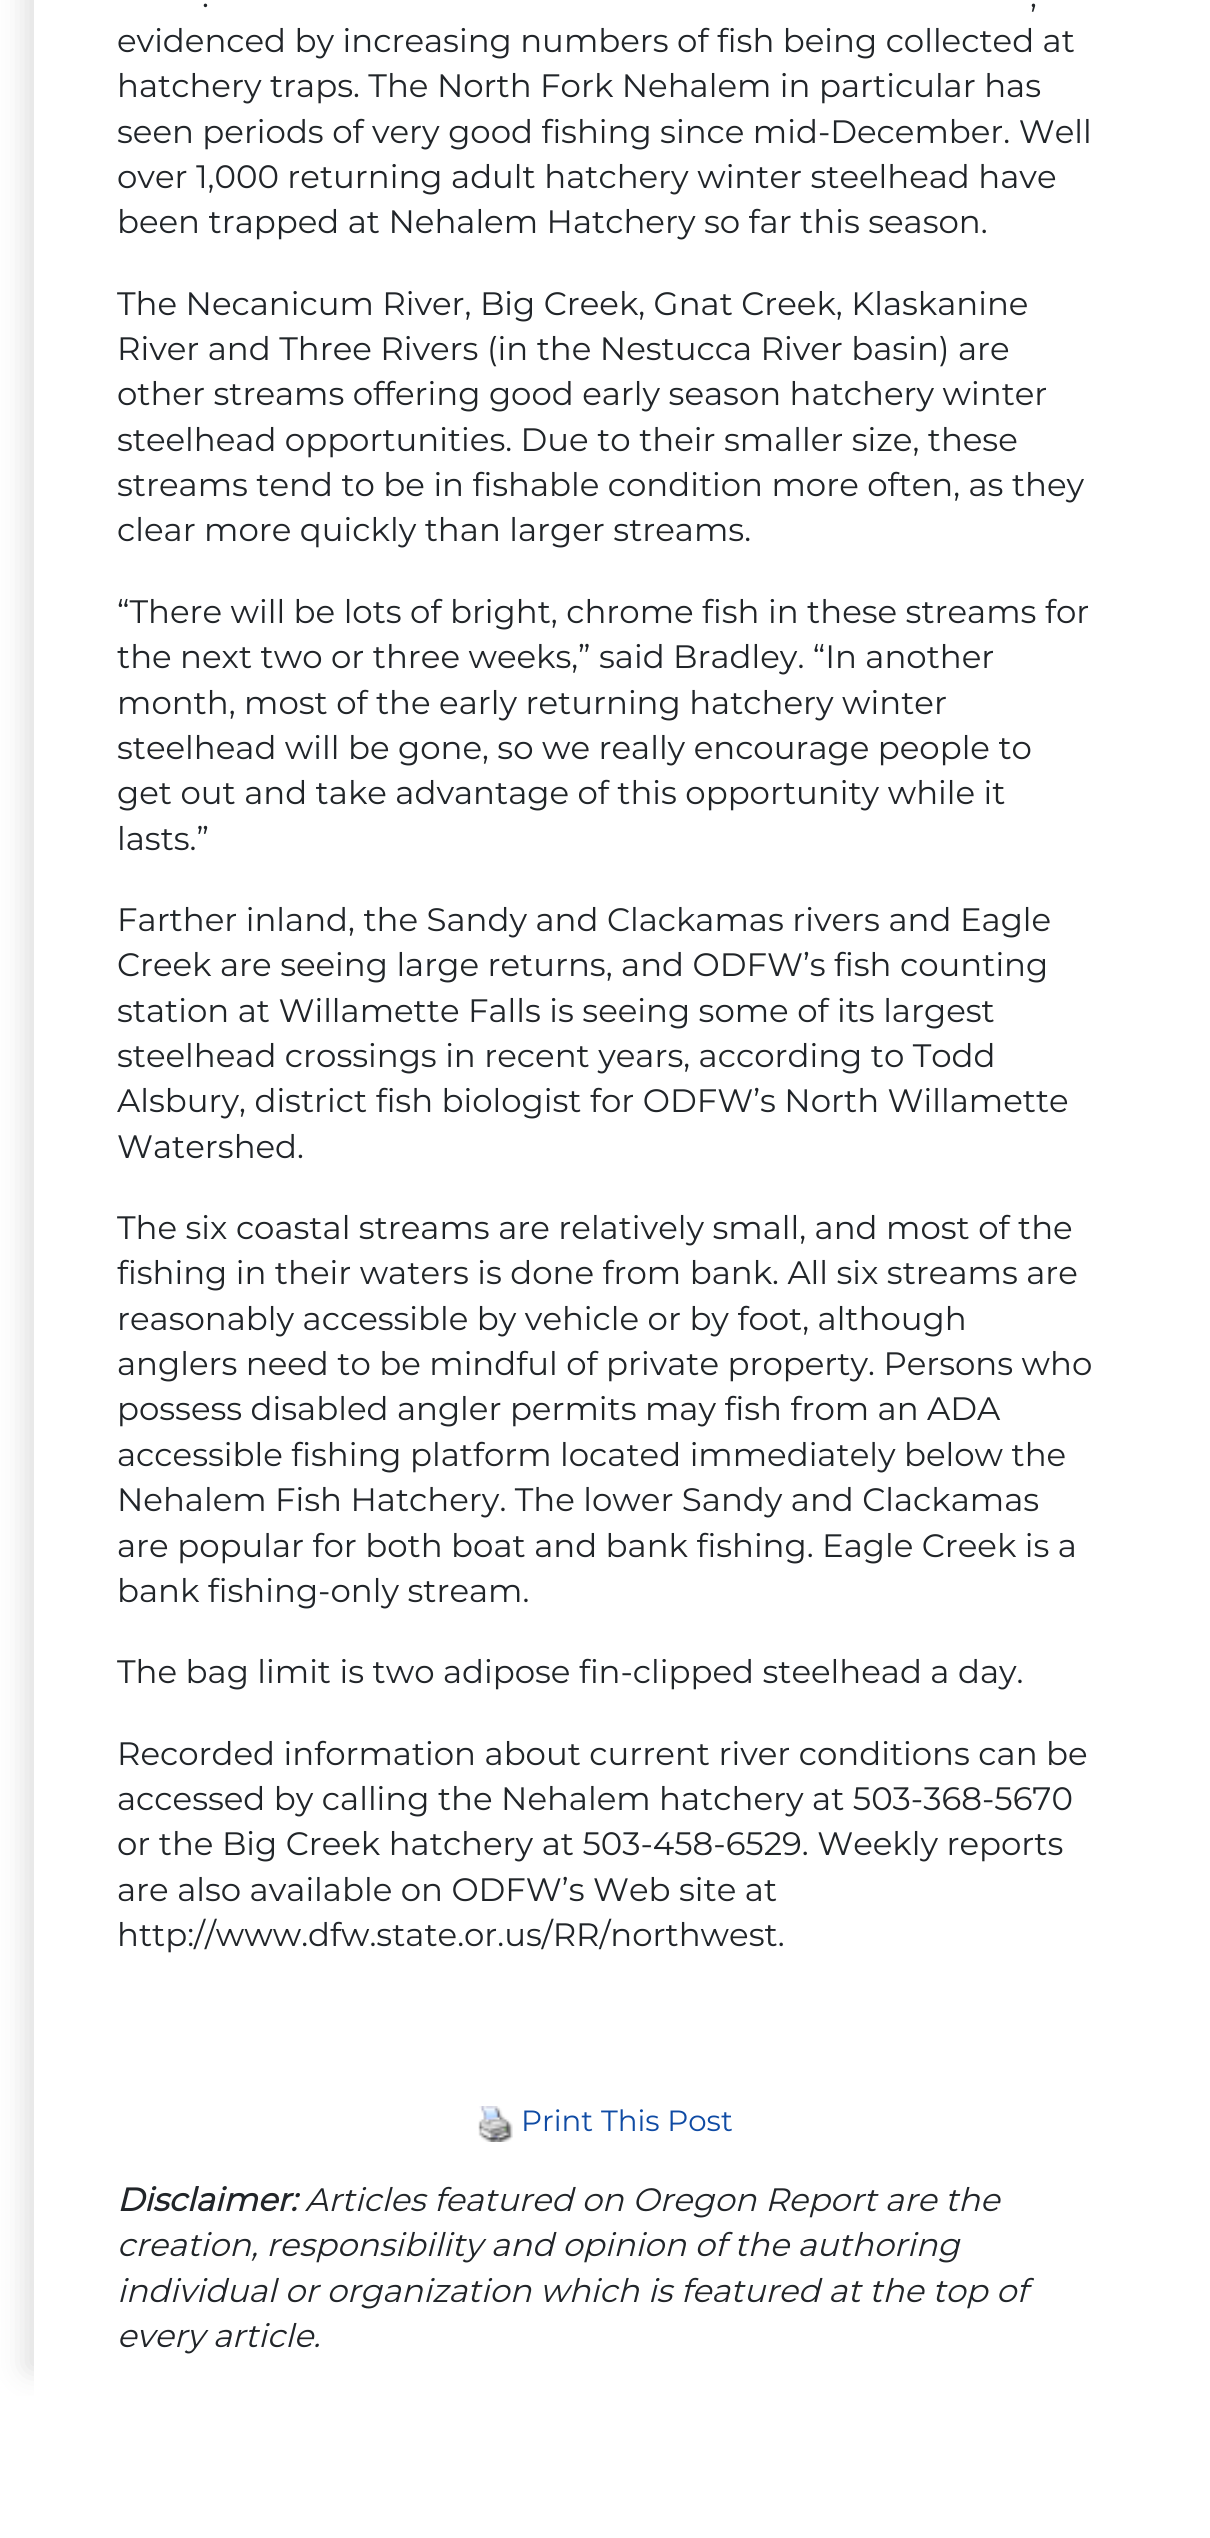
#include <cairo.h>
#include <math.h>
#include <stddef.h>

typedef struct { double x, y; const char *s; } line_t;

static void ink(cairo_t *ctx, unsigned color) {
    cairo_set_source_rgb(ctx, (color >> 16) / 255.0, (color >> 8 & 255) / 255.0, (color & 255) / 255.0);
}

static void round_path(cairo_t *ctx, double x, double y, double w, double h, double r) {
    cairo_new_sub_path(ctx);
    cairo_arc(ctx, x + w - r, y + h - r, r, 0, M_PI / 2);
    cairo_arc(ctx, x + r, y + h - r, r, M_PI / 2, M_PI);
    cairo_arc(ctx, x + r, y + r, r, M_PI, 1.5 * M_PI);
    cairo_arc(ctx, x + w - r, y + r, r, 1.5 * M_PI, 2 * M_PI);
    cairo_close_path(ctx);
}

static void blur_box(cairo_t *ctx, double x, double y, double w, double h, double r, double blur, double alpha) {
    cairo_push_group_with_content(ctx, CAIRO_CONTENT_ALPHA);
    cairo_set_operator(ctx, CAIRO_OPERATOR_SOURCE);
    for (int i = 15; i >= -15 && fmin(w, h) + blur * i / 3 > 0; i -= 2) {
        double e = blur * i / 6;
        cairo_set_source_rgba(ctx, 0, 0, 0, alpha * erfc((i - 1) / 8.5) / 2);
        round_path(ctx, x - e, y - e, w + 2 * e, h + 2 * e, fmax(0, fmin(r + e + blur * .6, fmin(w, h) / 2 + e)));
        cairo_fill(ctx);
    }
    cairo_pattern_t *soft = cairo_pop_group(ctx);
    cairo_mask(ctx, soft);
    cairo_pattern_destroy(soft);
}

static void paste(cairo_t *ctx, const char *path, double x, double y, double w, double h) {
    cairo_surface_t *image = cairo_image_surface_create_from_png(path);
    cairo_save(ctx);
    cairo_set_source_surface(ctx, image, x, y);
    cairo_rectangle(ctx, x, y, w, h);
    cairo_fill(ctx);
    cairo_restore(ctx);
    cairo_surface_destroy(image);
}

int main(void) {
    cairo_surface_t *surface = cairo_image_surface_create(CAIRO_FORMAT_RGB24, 1210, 2538);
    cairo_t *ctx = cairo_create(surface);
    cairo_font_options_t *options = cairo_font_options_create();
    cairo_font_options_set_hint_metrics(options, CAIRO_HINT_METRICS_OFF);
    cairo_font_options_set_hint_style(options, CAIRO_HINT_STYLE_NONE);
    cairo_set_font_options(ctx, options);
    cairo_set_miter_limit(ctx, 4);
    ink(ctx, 0xFFFFFF);
    cairo_paint(ctx);
    cairo_save(ctx);
    cairo_rectangle(ctx, 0, 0, 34, 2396);
    cairo_clip(ctx);
    ink(ctx, 0xDCDCDC);
    blur_box(ctx, 27, -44, 1103, 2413, 0, 14.5, 1);
    cairo_restore(ctx);
    cairo_select_font_face(ctx, "Montserrat Thin", CAIRO_FONT_SLANT_NORMAL, CAIRO_FONT_WEIGHT_NORMAL);
    cairo_set_font_size(ctx, 32.4);
    ink(ctx, 0x212529);
    {
        static const line_t items[] = {
            {202, 7, "."},
            {1030, 7, ","},
            {117, 52, "evidenced by increasing numbers of fish being collected at"},
            {117, 97, "hatchery traps. The North Fork Nehalem in particular has"},
            {117, 143, "seen periods of very good fishing since mid-December. Well"},
            {117, 188, "over 1,000 returning adult hatchery winter steelhead have"},
            {117, 233, "been trapped at Nehalem Hatchery so far this season."},
            {117, 315, "The Necanicum River, Big Creek, Gnat Creek, Klaskanine"},
            {117, 360, "River and Three Rivers (in the Nestucca River basin) are"},
            {117, 405, "other streams offering good early season hatchery winter"},
            {117, 451, "steelhead opportunities. Due to their smaller size, these"},
            {117, 496, "streams tend to be in fishable condition more often, as they"},
            {117, 541, "clear more quickly than larger streams."},
            {117, 623, "“There will be lots of bright, chrome fish in these streams for"},
            {117, 668, "the next two or three weeks,” said Bradley. “In another"},
            {117, 714, "month, most of the early returning hatchery winter"},
            {117, 759, "steelhead will be gone, so we really encourage people to"},
            {117, 804, "get out and take advantage of this opportunity while it"},
            {117, 850, "lasts.”"},
            {117, 931, "Farther inland, the Sandy and Clackamas rivers and Eagle"},
            {117, 976, "Creek are seeing large returns, and ODFW’s fish counting"},
            {117, 1022, "station at Willamette Falls is seeing some of its largest"},
            {117, 1067, "steelhead crossings in recent years, according to Todd"},
            {117, 1112, "Alsbury, district fish biologist for ODFW’s North Willamette"},
            {117, 1158, "Watershed."},
            {117, 1239, "The six coastal streams are relatively small, and most of the"},
            {117, 1284, "fishing in their waters is done from bank. All six streams are"},
            {117, 1330, "reasonably accessible by vehicle or by foot, although"},
            {117, 1375, "anglers need to be mindful of private property. Persons who"},
            {117, 1420, "possess disabled angler permits may fish from an ADA"},
            {117, 1466, "accessible fishing platform located immediately below the"},
            {117, 1511, "Nehalem Fish Hatchery. The lower Sandy and Clackamas"},
            {117, 1557, "are popular for both boat and bank fishing. Eagle Creek is a"},
            {117, 1602, "bank fishing-only stream."},
            {117, 1683, "The bag limit is two adipose fin-clipped steelhead a day."},
            {117, 1765, "Recorded information about current river conditions can be"},
            {117, 1810, "accessed by calling the Nehalem hatchery at 503-368-5670"},
            {117, 1855, "or the Big Creek hatchery at 503-458-6529. Weekly reports"},
            {117, 1901, "are also available on ODFW’s Web site at"},
            {117, 1946, "http://www.dfw.state.or.us/RR/northwest."},
        };
        for (size_t i = 0; i < sizeof items / sizeof *items; i++) {
            cairo_move_to(ctx, items[i].x, items[i].y);
            cairo_show_text(ctx, items[i].s);
        }
    }
    paste(ctx, "media/1.png", 478, 2106, 35, 36);
    cairo_set_font_size(ctx, 29.25);
    ink(ctx, 0x0F4BA4);
    cairo_move_to(ctx, 521, 2131);
    cairo_show_text(ctx, "Print This Post");
    cairo_select_font_face(ctx, "Montserrat", CAIRO_FONT_SLANT_ITALIC, CAIRO_FONT_WEIGHT_BOLD);
    cairo_set_font_size(ctx, 32.4);
    ink(ctx, 0x212529);
    cairo_move_to(ctx, 117, 2211);
    cairo_show_text(ctx, "Disclaimer:");
    cairo_select_font_face(ctx, "Montserrat Thin", CAIRO_FONT_SLANT_ITALIC, CAIRO_FONT_WEIGHT_NORMAL);
    {
        static const line_t items[] = {
            {305, 2211, "Articles featured on Oregon Report are the"},
            {117, 2256, "creation, responsibility and opinion of the authoring"},
            {117, 2302, "individual or organization which is featured at the top of"},
            {117, 2347, "every article."},
        };
        for (size_t i = 0; i < sizeof items / sizeof *items; i++) {
            cairo_move_to(ctx, items[i].x, items[i].y);
            cairo_show_text(ctx, items[i].s);
        }
    }
    cairo_surface_write_to_png(surface, "image.png");
    cairo_font_options_destroy(options);
    cairo_destroy(ctx);
    cairo_surface_destroy(surface);
    return 0;
}
